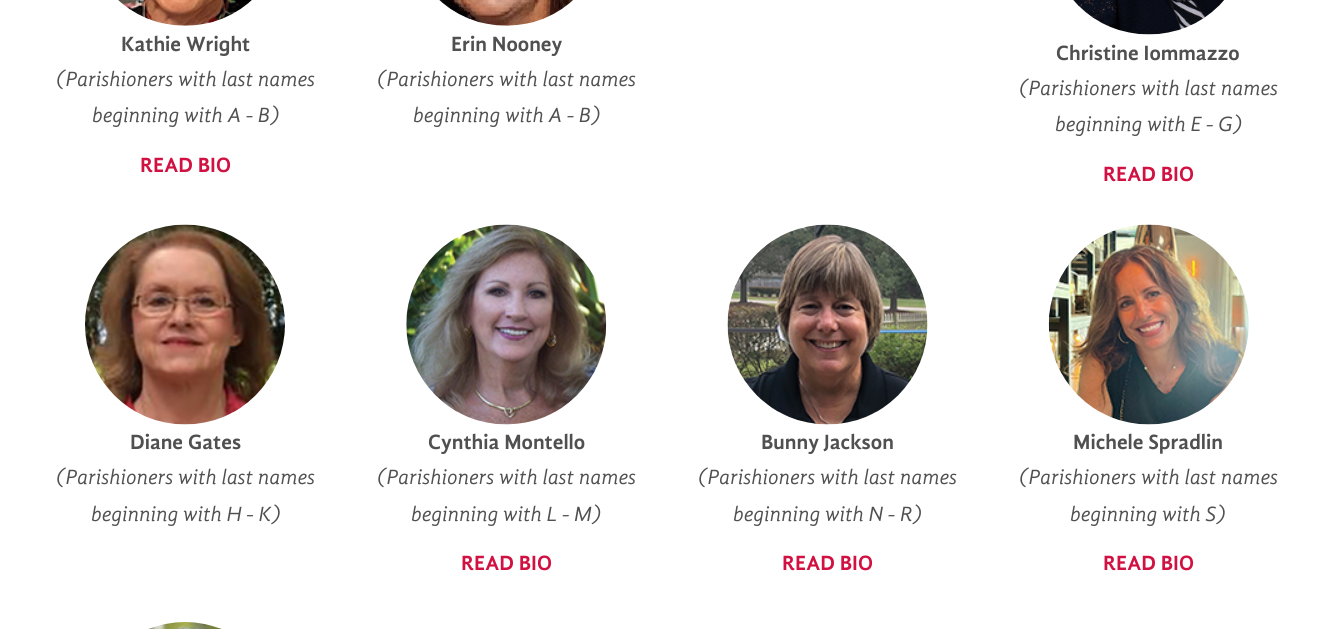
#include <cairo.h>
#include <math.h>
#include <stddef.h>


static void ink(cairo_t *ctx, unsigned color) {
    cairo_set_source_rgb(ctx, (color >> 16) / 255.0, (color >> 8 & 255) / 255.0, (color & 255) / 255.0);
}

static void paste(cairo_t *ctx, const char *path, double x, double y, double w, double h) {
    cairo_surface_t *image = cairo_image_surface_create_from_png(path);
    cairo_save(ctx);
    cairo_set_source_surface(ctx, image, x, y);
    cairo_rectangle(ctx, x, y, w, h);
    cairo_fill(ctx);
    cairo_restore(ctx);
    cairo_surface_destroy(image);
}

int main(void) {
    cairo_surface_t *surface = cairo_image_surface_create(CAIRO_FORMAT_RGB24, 1333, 629);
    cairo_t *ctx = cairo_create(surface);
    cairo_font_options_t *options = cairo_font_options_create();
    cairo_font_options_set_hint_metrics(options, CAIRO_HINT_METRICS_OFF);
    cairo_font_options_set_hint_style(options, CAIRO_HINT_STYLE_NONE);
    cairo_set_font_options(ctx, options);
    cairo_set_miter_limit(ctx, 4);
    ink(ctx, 0xFFFFFF);
    cairo_paint(ctx);
    paste(ctx, "media/1.png", 118, 0, 134, 26);
    cairo_select_font_face(ctx, "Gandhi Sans", CAIRO_FONT_SLANT_NORMAL, CAIRO_FONT_WEIGHT_BOLD);
    cairo_set_font_size(ctx, 21.25);
    ink(ctx, 0x505050);
    cairo_move_to(ctx, 121, 51);
    cairo_show_text(ctx, "Kathie Wright");
    cairo_select_font_face(ctx, "Gandhi Sans", CAIRO_FONT_SLANT_ITALIC, CAIRO_FONT_WEIGHT_NORMAL);
    cairo_move_to(ctx, 56, 86);
    cairo_show_text(ctx, "(Parishioners with last names");
    cairo_move_to(ctx, 92, 122);
    cairo_show_text(ctx, "beginning with A - B)");
    cairo_select_font_face(ctx, "Gandhi Sans", CAIRO_FONT_SLANT_NORMAL, CAIRO_FONT_WEIGHT_BOLD);
    ink(ctx, 0xD11141);
    cairo_move_to(ctx, 140, 172);
    cairo_show_text(ctx, "READ BIO");
    paste(ctx, "media/2.png", 439, 0, 134, 26);
    ink(ctx, 0x505050);
    cairo_move_to(ctx, 451, 51);
    cairo_show_text(ctx, "Erin Nooney");
    cairo_select_font_face(ctx, "Gandhi Sans", CAIRO_FONT_SLANT_ITALIC, CAIRO_FONT_WEIGHT_NORMAL);
    cairo_move_to(ctx, 377, 86);
    cairo_show_text(ctx, "(Parishioners with last names");
    cairo_move_to(ctx, 413, 122);
    cairo_show_text(ctx, "beginning with A - B)");
    paste(ctx, "media/3.png", 1073, 0, 151, 35);
    cairo_select_font_face(ctx, "Gandhi Sans", CAIRO_FONT_SLANT_NORMAL, CAIRO_FONT_WEIGHT_BOLD);
    cairo_move_to(ctx, 1056, 60);
    cairo_show_text(ctx, "Christine Iommazzo");
    cairo_select_font_face(ctx, "Gandhi Sans", CAIRO_FONT_SLANT_ITALIC, CAIRO_FONT_WEIGHT_NORMAL);
    cairo_move_to(ctx, 1019, 95);
    cairo_show_text(ctx, "(Parishioners with last names");
    cairo_move_to(ctx, 1055, 131);
    cairo_show_text(ctx, "beginning with E - G)");
    cairo_select_font_face(ctx, "Gandhi Sans", CAIRO_FONT_SLANT_NORMAL, CAIRO_FONT_WEIGHT_BOLD);
    ink(ctx, 0xD11141);
    cairo_move_to(ctx, 1103, 181);
    cairo_show_text(ctx, "READ BIO");
    paste(ctx, "media/4.png", 85, 224, 200, 201);
    ink(ctx, 0x505050);
    cairo_move_to(ctx, 130, 449);
    cairo_show_text(ctx, "Diane Gates");
    cairo_select_font_face(ctx, "Gandhi Sans", CAIRO_FONT_SLANT_ITALIC, CAIRO_FONT_WEIGHT_NORMAL);
    cairo_move_to(ctx, 56, 484);
    cairo_show_text(ctx, "(Parishioners with last names");
    cairo_move_to(ctx, 91, 521);
    cairo_show_text(ctx, "beginning with H - K)");
    paste(ctx, "media/5.png", 406, 224, 201, 201);
    cairo_select_font_face(ctx, "Gandhi Sans", CAIRO_FONT_SLANT_NORMAL, CAIRO_FONT_WEIGHT_BOLD);
    cairo_move_to(ctx, 428, 449);
    cairo_show_text(ctx, "Cynthia Montello");
    cairo_select_font_face(ctx, "Gandhi Sans", CAIRO_FONT_SLANT_ITALIC, CAIRO_FONT_WEIGHT_NORMAL);
    cairo_move_to(ctx, 377, 484);
    cairo_show_text(ctx, "(Parishioners with last names");
    cairo_move_to(ctx, 411, 521);
    cairo_show_text(ctx, "beginning with L - M)");
    cairo_select_font_face(ctx, "Gandhi Sans", CAIRO_FONT_SLANT_NORMAL, CAIRO_FONT_WEIGHT_BOLD);
    ink(ctx, 0xD11141);
    cairo_move_to(ctx, 461, 570);
    cairo_show_text(ctx, "READ BIO");
    paste(ctx, "media/6.png", 727, 224, 201, 201);
    ink(ctx, 0x505050);
    cairo_move_to(ctx, 761, 449);
    cairo_show_text(ctx, "Bunny Jackson");
    cairo_select_font_face(ctx, "Gandhi Sans", CAIRO_FONT_SLANT_ITALIC, CAIRO_FONT_WEIGHT_NORMAL);
    cairo_move_to(ctx, 698, 484);
    cairo_show_text(ctx, "(Parishioners with last names");
    cairo_move_to(ctx, 733, 521);
    cairo_show_text(ctx, "beginning with N - R)");
    cairo_select_font_face(ctx, "Gandhi Sans", CAIRO_FONT_SLANT_NORMAL, CAIRO_FONT_WEIGHT_BOLD);
    ink(ctx, 0xD11141);
    cairo_move_to(ctx, 782, 570);
    cairo_show_text(ctx, "READ BIO");
    paste(ctx, "media/7.png", 1048, 224, 201, 201);
    ink(ctx, 0x505050);
    cairo_move_to(ctx, 1073, 449);
    cairo_show_text(ctx, "Michele Spradlin");
    cairo_select_font_face(ctx, "Gandhi Sans", CAIRO_FONT_SLANT_ITALIC, CAIRO_FONT_WEIGHT_NORMAL);
    cairo_move_to(ctx, 1019, 484);
    cairo_show_text(ctx, "(Parishioners with last names");
    cairo_move_to(ctx, 1070, 521);
    cairo_show_text(ctx, "beginning with S)");
    cairo_select_font_face(ctx, "Gandhi Sans", CAIRO_FONT_SLANT_NORMAL, CAIRO_FONT_WEIGHT_BOLD);
    ink(ctx, 0xD11141);
    cairo_move_to(ctx, 1103, 570);
    cairo_show_text(ctx, "READ BIO");
    paste(ctx, "media/8.png", 148, 622, 74, 7);
    cairo_surface_write_to_png(surface, "image.png");
    cairo_font_options_destroy(options);
    cairo_destroy(ctx);
    cairo_surface_destroy(surface);
    return 0;
}
